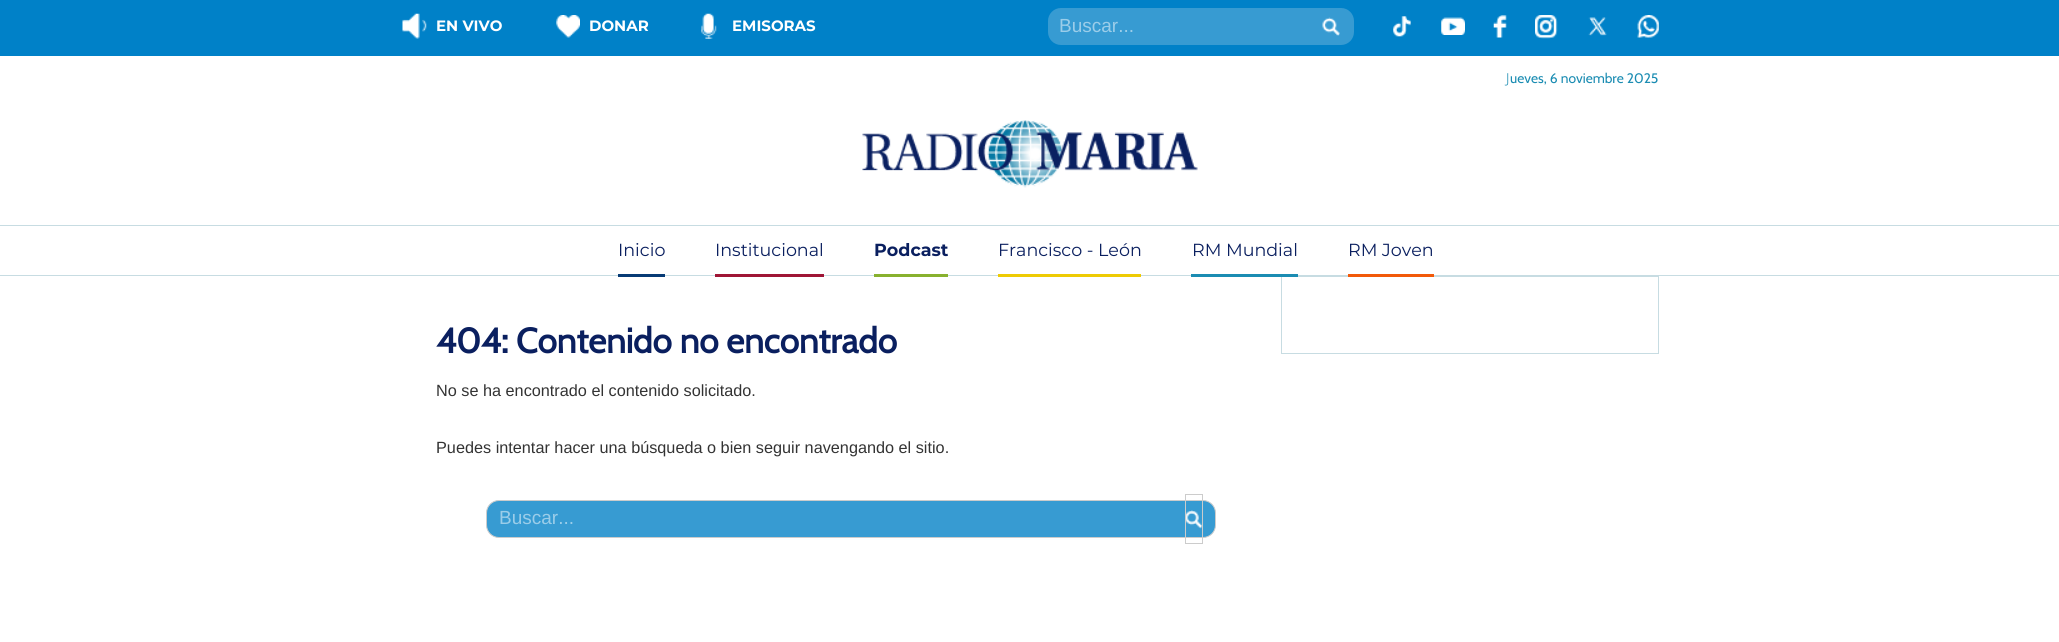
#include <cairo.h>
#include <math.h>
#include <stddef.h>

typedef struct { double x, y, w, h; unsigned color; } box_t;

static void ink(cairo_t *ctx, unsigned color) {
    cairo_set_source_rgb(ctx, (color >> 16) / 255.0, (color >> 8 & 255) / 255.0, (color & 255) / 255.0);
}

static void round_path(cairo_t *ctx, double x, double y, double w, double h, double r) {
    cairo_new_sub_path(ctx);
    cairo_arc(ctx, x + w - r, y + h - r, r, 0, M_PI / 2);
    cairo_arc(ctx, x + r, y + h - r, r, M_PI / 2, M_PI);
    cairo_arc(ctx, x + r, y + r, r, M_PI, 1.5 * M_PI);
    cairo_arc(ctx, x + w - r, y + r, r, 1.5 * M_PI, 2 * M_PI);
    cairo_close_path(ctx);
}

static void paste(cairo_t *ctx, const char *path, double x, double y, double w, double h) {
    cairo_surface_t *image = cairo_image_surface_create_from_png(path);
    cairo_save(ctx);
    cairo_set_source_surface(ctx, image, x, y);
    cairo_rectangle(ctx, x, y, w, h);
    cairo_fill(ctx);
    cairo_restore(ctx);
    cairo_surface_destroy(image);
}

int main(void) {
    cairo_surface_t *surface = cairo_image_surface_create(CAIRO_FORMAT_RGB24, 2059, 642);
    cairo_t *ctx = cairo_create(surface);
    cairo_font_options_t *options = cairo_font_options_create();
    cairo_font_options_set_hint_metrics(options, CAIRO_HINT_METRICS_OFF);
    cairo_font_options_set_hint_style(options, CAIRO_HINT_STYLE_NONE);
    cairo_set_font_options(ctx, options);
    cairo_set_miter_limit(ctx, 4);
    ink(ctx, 0xFFFFFF);
    cairo_paint(ctx);
    ink(ctx, 0x0081C8);
    cairo_rectangle(ctx, 0, 0, 2059, 56);
    cairo_fill(ctx);
    paste(ctx, "media/1.png", 402, 13, 25, 26);
    cairo_select_font_face(ctx, "Montserrat", CAIRO_FONT_SLANT_NORMAL, CAIRO_FONT_WEIGHT_BOLD);
    cairo_set_font_size(ctx, 15);
    ink(ctx, 0xFFFFFF);
    cairo_move_to(ctx, 436, 31);
    cairo_show_text(ctx, "EN VIVO");
    paste(ctx, "media/2.png", 556, 15, 24, 23);
    cairo_move_to(ctx, 589, 31);
    cairo_show_text(ctx, "DONAR");
    paste(ctx, "media/3.png", 701, 13, 16, 26);
    cairo_move_to(ctx, 732, 31);
    cairo_show_text(ctx, "EMISORAS");
    ink(ctx, 0x379BD2);
    round_path(ctx, 1048, 8, 306, 37, 13);
    cairo_fill(ctx);
    cairo_select_font_face(ctx, "Liberation Sans", CAIRO_FONT_SLANT_NORMAL, CAIRO_FONT_WEIGHT_NORMAL);
    cairo_set_font_size(ctx, 19);
    ink(ctx, 0x9BCDE9);
    cairo_move_to(ctx, 1059, 32);
    cairo_show_text(ctx, "Buscar...");
    paste(ctx, "media/4.png", 1322, 17, 18, 19);
    paste(ctx, "media/5.png", 1393, 16, 18, 21);
    paste(ctx, "media/6.png", 1441, 17, 24, 18);
    paste(ctx, "media/7.png", 1493, 15, 14, 23);
    paste(ctx, "media/8.png", 1535, 15, 23, 24);
    paste(ctx, "media/9.png", 1588, 17, 19, 19);
    paste(ctx, "media/10.png", 1637, 15, 22, 23);
    cairo_select_font_face(ctx, "Noto Sans Light", CAIRO_FONT_SLANT_NORMAL, CAIRO_FONT_WEIGHT_NORMAL);
    cairo_set_font_size(ctx, 13.75);
    ink(ctx, 0x1A8CB2);
    cairo_move_to(ctx, 1506, 83);
    cairo_show_text(ctx, "J");
    cairo_select_font_face(ctx, "Cabin", CAIRO_FONT_SLANT_NORMAL, CAIRO_FONT_WEIGHT_NORMAL);
    cairo_move_to(ctx, 1510, 83);
    cairo_show_text(ctx, "ueves, 6 noviembre 2025");
    paste(ctx, "media/11.png", 862, 120, 336, 68);
    {
        static const box_t items[] = {
            {0, 225, 2059, 1, 0xC7DCE2},
            {0, 275, 2059, 1, 0xC7DCE2},
            {618, 274, 47, 3, 0x073B75},
        };
        for (size_t i = 0; i < sizeof items / sizeof *items; i++) {
            ink(ctx, items[i].color);
            cairo_rectangle(ctx, items[i].x, items[i].y, items[i].w, items[i].h);
            cairo_fill(ctx);
        }
    }
    cairo_select_font_face(ctx, "Montserrat", CAIRO_FONT_SLANT_NORMAL, CAIRO_FONT_WEIGHT_NORMAL);
    cairo_set_font_size(ctx, 17.5);
    ink(ctx, 0x0A1F5F);
    cairo_move_to(ctx, 618, 256);
    cairo_show_text(ctx, "Inicio");
    ink(ctx, 0x9F1535);
    cairo_rectangle(ctx, 715, 274, 109, 3);
    cairo_fill(ctx);
    ink(ctx, 0x0A1F5F);
    cairo_move_to(ctx, 715, 256);
    cairo_show_text(ctx, "Institucional");
    ink(ctx, 0x88B12F);
    cairo_rectangle(ctx, 874, 274, 74, 3);
    cairo_fill(ctx);
    cairo_select_font_face(ctx, "Montserrat", CAIRO_FONT_SLANT_NORMAL, CAIRO_FONT_WEIGHT_BOLD);
    ink(ctx, 0x0A1F5F);
    cairo_move_to(ctx, 874, 256);
    cairo_show_text(ctx, "Podcast");
    ink(ctx, 0xEECB04);
    cairo_rectangle(ctx, 998, 274, 143, 3);
    cairo_fill(ctx);
    cairo_select_font_face(ctx, "Montserrat", CAIRO_FONT_SLANT_NORMAL, CAIRO_FONT_WEIGHT_NORMAL);
    ink(ctx, 0x0A1F5F);
    cairo_move_to(ctx, 998, 256);
    cairo_show_text(ctx, "Francisco - León");
    cairo_rectangle(ctx, 1281.5, 276.5, 377, 77);
    ink(ctx, 0xC7DCE2);
    cairo_set_line_width(ctx, 1);
    cairo_stroke(ctx);
    ink(ctx, 0x1B8CB2);
    cairo_rectangle(ctx, 1191, 274, 107, 3);
    cairo_fill(ctx);
    ink(ctx, 0x0A1F5F);
    cairo_move_to(ctx, 1192, 256);
    cairo_show_text(ctx, "RM Mundial");
    ink(ctx, 0xF25909);
    cairo_rectangle(ctx, 1348, 274, 86, 3);
    cairo_fill(ctx);
    ink(ctx, 0x0A1F5F);
    cairo_move_to(ctx, 1348, 256);
    cairo_show_text(ctx, "RM Joven");
    cairo_select_font_face(ctx, "Cabin", CAIRO_FONT_SLANT_NORMAL, CAIRO_FONT_WEIGHT_BOLD);
    cairo_set_font_size(ctx, 35);
    cairo_move_to(ctx, 436, 353);
    cairo_show_text(ctx, "404: Contenido no encontrado");
    cairo_select_font_face(ctx, "Liberation Sans", CAIRO_FONT_SLANT_NORMAL, CAIRO_FONT_WEIGHT_NORMAL);
    cairo_set_font_size(ctx, 16.25);
    ink(ctx, 0x333333);
    cairo_move_to(ctx, 436, 396);
    cairo_show_text(ctx, "No se ha encontrado el contenido solicitado.");
    cairo_move_to(ctx, 436, 453);
    cairo_show_text(ctx, "Puedes intentar hacer una búsqueda o bien seguir navengando el sitio.");
    ink(ctx, 0x379BD2);
    round_path(ctx, 486.5, 500.5, 729, 37, 12.5);
    cairo_fill_preserve(ctx);
    ink(ctx, 0xCCCCCC);
    cairo_stroke(ctx);
    cairo_set_font_size(ctx, 19);
    ink(ctx, 0x9BCDE9);
    cairo_move_to(ctx, 499, 524);
    cairo_show_text(ctx, "Buscar...");
    paste(ctx, "media/12.png", 1186, 510, 16, 19);
    cairo_rectangle(ctx, 1185.5, 494.5, 17, 49);
    ink(ctx, 0xCCCCCC);
    cairo_stroke(ctx);
    cairo_surface_write_to_png(surface, "image.png");
    cairo_font_options_destroy(options);
    cairo_destroy(ctx);
    cairo_surface_destroy(surface);
    return 0;
}
